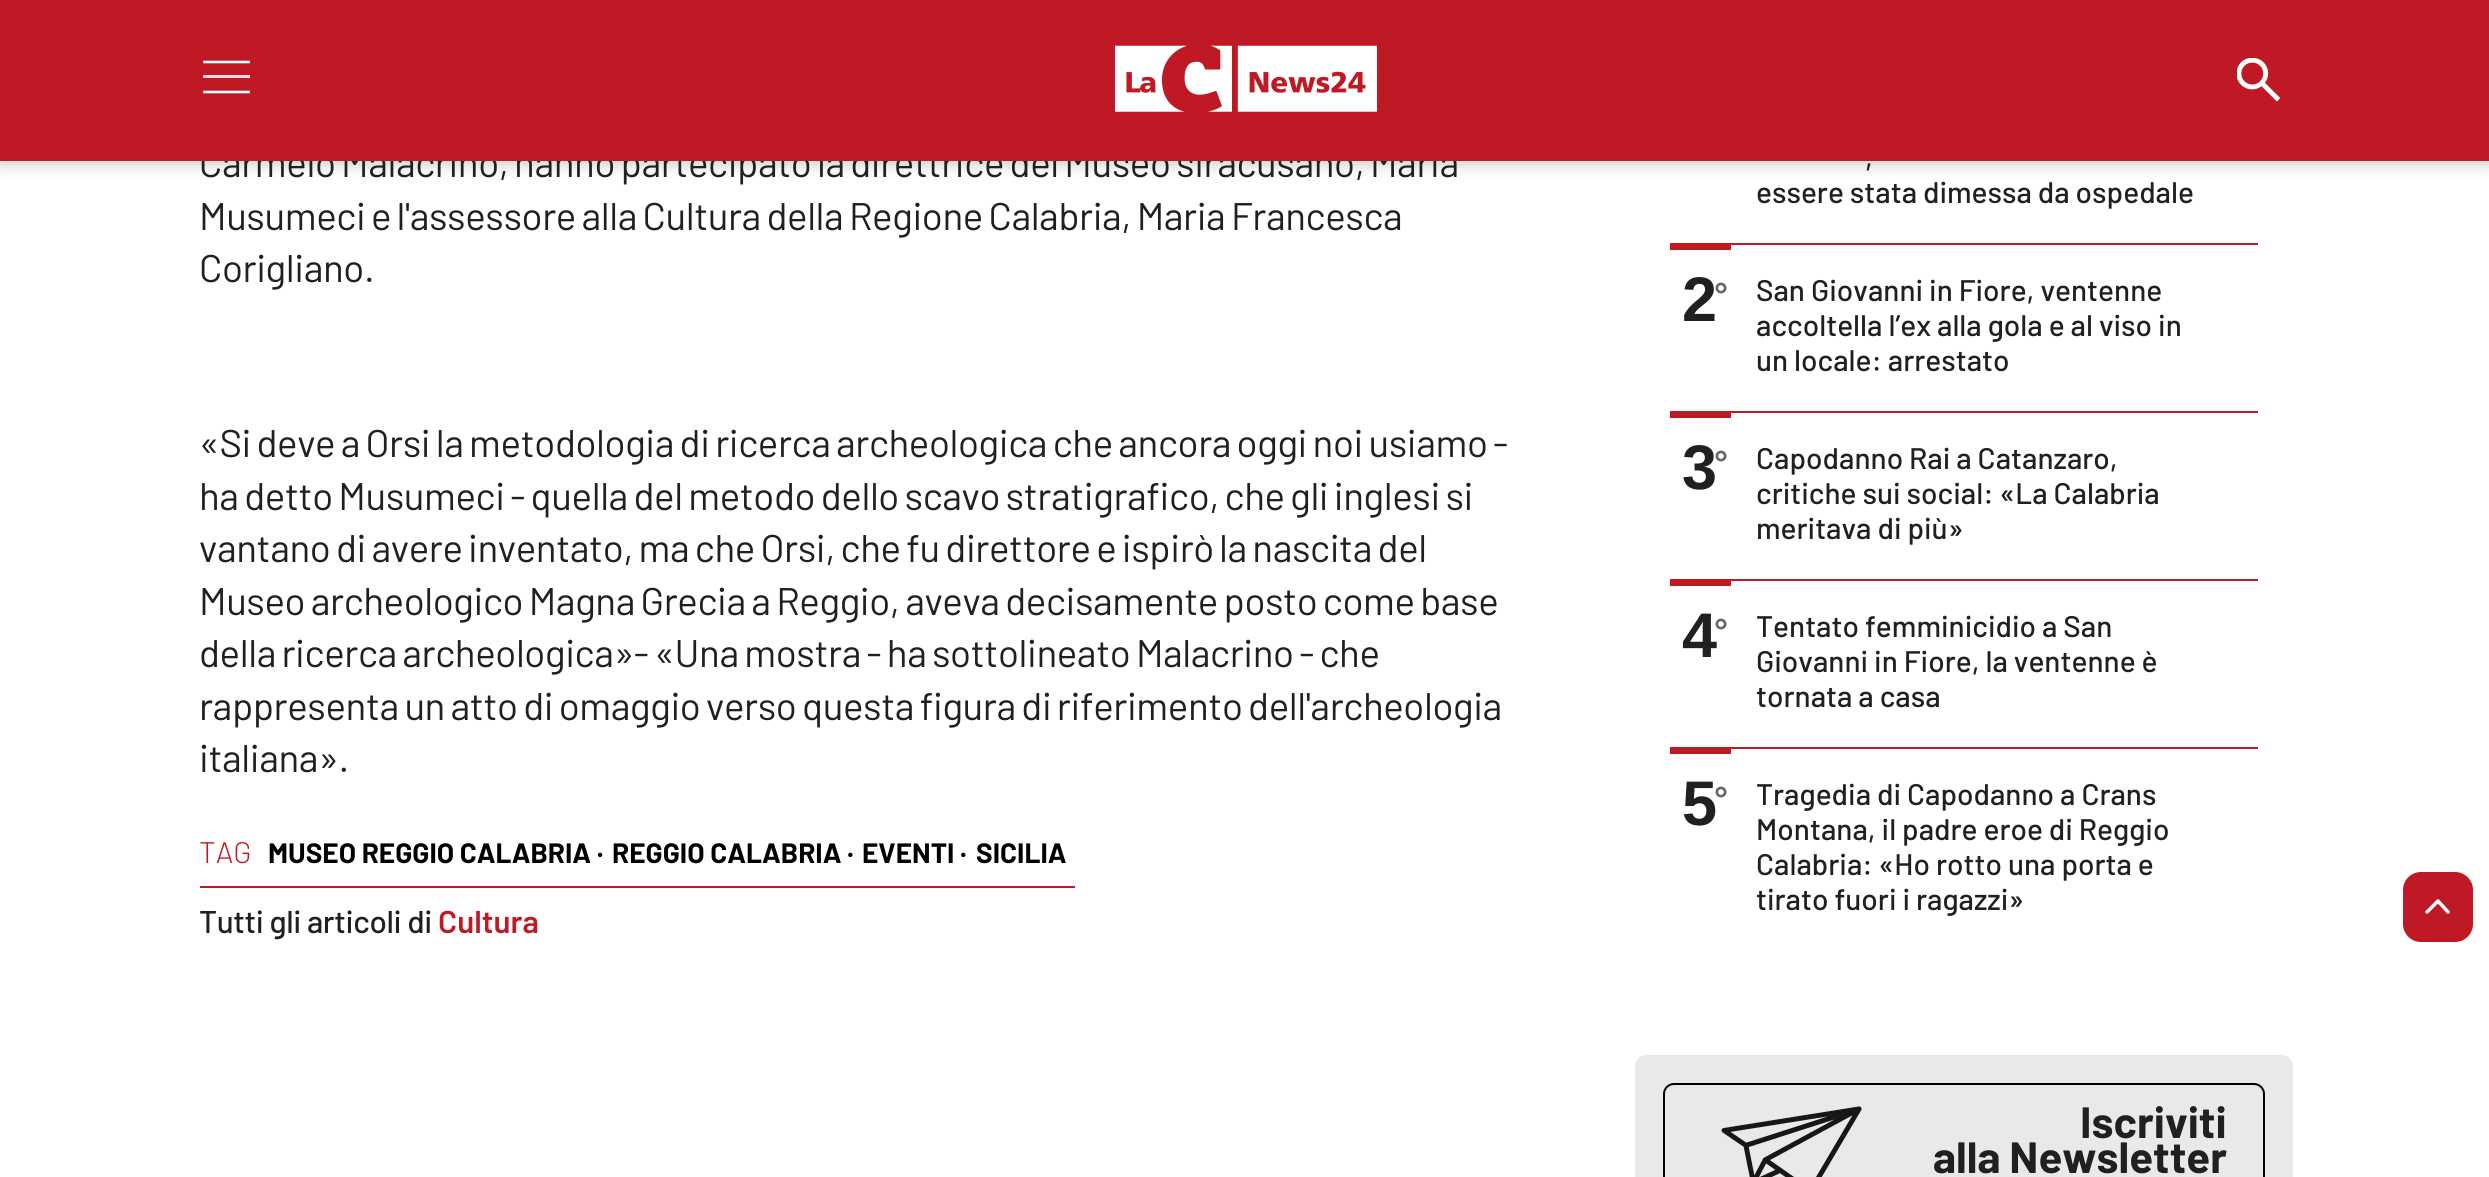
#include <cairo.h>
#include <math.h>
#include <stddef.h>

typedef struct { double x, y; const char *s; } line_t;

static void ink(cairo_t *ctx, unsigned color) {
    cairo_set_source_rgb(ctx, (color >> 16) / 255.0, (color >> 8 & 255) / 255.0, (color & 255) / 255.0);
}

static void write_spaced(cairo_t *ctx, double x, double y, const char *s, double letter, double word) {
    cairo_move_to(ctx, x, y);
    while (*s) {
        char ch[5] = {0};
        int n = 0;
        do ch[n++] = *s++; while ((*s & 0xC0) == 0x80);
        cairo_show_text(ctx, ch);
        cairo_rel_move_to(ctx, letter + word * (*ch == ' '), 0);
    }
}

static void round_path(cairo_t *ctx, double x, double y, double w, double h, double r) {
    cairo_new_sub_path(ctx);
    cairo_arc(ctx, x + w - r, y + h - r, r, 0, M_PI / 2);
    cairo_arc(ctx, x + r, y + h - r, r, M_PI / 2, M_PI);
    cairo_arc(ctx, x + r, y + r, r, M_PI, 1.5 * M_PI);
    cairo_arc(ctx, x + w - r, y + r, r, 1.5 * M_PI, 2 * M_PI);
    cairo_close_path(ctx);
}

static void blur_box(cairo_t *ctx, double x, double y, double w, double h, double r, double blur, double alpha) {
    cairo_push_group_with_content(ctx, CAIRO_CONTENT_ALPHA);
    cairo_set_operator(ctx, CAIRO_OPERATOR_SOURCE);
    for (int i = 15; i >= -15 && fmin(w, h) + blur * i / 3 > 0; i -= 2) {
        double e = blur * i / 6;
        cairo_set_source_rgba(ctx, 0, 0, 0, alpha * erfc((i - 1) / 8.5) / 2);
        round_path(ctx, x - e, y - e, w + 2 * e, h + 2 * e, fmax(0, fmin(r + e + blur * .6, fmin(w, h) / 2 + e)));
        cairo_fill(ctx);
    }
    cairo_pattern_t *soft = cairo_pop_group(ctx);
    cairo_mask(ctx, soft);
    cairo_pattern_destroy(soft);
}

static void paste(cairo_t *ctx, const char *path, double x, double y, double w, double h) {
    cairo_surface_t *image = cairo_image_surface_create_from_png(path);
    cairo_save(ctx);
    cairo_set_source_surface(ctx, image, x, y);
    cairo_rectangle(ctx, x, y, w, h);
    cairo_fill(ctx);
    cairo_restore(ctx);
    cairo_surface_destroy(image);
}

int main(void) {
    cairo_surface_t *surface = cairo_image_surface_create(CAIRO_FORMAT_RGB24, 2489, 1177);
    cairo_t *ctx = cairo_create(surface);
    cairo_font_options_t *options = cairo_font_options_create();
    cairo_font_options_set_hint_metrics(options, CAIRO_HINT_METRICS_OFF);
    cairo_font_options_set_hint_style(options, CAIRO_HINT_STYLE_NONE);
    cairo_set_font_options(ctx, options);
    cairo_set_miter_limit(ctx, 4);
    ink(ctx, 0xFFFFFF);
    cairo_paint(ctx);
    ink(ctx, 0x000000);
    blur_box(ctx, 0, 0, 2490, 161, 0, 9, 0.3);
    cairo_select_font_face(ctx, "Barlow", CAIRO_FONT_SLANT_NORMAL, CAIRO_FONT_WEIGHT_NORMAL);
    cairo_set_font_size(ctx, 38.5);
    ink(ctx, 0x212020);
    write_spaced(ctx, 199, 177, "Carmelo Malacrino, hanno partecipato la direttrice del Museo siracusano, Maria", -0.4, -1.75);
    ink(ctx, 0xBE1924);
    cairo_rectangle(ctx, 0, 0, 2489, 161);
    cairo_fill(ctx);
    paste(ctx, "media/1.png", 1115, 45, 262, 67);
    paste(ctx, "media/2.png", 2237, 58, 43, 44);
    cairo_new_path(ctx);
    cairo_move_to(ctx, 204.5, 62);
    cairo_line_to(ctx, 248.5, 62);
    ink(ctx, 0xFFFFFF);
    cairo_set_line_width(ctx, 2.6);
    cairo_set_line_cap(ctx, CAIRO_LINE_CAP_SQUARE);
    cairo_stroke(ctx);
    ink(ctx, 0xF6E0E2);
    cairo_rectangle(ctx, 203, 75, 47, 3);
    cairo_fill(ctx);
    cairo_new_path(ctx);
    cairo_move_to(ctx, 204.5, 92);
    cairo_line_to(ctx, 248.5, 92);
    ink(ctx, 0xFFFFFF);
    cairo_stroke(ctx);
    ink(ctx, 0x212020);
    write_spaced(ctx, 199, 230, "Musumeci e l'assessore alla Cultura della Regione Calabria, Maria Francesca", -0.4, -1.75);
    write_spaced(ctx, 199, 282, "Corigliano.", -0.4, 0);
    {
        static const line_t items[] = {
            {199, 457, "«Si deve a Orsi la metodologia di ricerca archeologica che ancora oggi noi usiamo -"},
            {199, 510, "ha detto Musumeci - quella del metodo dello scavo stratigrafico, che gli inglesi si"},
            {199, 562, "vantano di avere inventato, ma che Orsi, che fu direttore e ispirò la nascita del"},
            {199, 615, "Museo archeologico Magna Grecia a Reggio, aveva decisamente posto come base"},
            {199, 667, "della ricerca archeologica»- «Una mostra - ha sottolineato Malacrino - che"},
            {199, 720, "rappresenta un atto di omaggio verso questa figura di riferimento dell'archeologia"},
        };
        for (size_t i = 0; i < sizeof items / sizeof *items; i++) {
            write_spaced(ctx, items[i].x, items[i].y, items[i].s, -0.4, -1.75);
        }
    }
    write_spaced(ctx, 199, 772, "italiana».", -0.4, 0);
    ink(ctx, 0xBE1924);
    cairo_rectangle(ctx, 200, 886, 875, 2);
    cairo_fill(ctx);
    cairo_select_font_face(ctx, "Barlow Light", CAIRO_FONT_SLANT_NORMAL, CAIRO_FONT_WEIGHT_NORMAL);
    cairo_set_font_size(ctx, 29.75);
    cairo_move_to(ctx, 199, 863);
    cairo_show_text(ctx, "TAG");
    cairo_select_font_face(ctx, "Barlow", CAIRO_FONT_SLANT_NORMAL, CAIRO_FONT_WEIGHT_BOLD);
    cairo_set_font_size(ctx, 28);
    ink(ctx, 0x000000);
    {
        static const line_t items[] = {
            {268, 863, "MUSEO REGGIO CALABRIA ·"},
            {612, 863, "REGGIO CALABRIA ·"},
            {862, 863, "EVENTI ·"},
            {976, 863, "SICILIA"},
        };
        for (size_t i = 0; i < sizeof items / sizeof *items; i++) {
            cairo_move_to(ctx, items[i].x, items[i].y);
            cairo_show_text(ctx, items[i].s);
        }
    }
    cairo_select_font_face(ctx, "Barlow Medium", CAIRO_FONT_SLANT_NORMAL, CAIRO_FONT_WEIGHT_NORMAL);
    cairo_set_font_size(ctx, 31.5);
    ink(ctx, 0x212020);
    write_spaced(ctx, 199, 933, "Tutti gli articoli di", -0.35, 0);
    cairo_select_font_face(ctx, "Barlow SemiBold", CAIRO_FONT_SLANT_NORMAL, CAIRO_FONT_WEIGHT_NORMAL);
    ink(ctx, 0xBE1924);
    cairo_move_to(ctx, 438, 933);
    cairo_show_text(ctx, "Cultura");
    cairo_select_font_face(ctx, "Barlow Medium", CAIRO_FONT_SLANT_NORMAL, CAIRO_FONT_WEIGHT_NORMAL);
    cairo_set_font_size(ctx, 29.75);
    ink(ctx, 0x212020);
    cairo_move_to(ctx, 1865, 168);
    cairo_show_text(ctx, ",");
    cairo_move_to(ctx, 1756, 203);
    cairo_show_text(ctx, "essere stata dimessa da ospedale");
    ink(ctx, 0xBE1924);
    cairo_rectangle(ctx, 1670, 243, 588, 2);
    cairo_fill(ctx);
    cairo_rectangle(ctx, 1670, 245, 61, 5);
    cairo_fill(ctx);
    cairo_select_font_face(ctx, "Liberation Sans", CAIRO_FONT_SLANT_NORMAL, CAIRO_FONT_WEIGHT_BOLD);
    cairo_set_font_size(ctx, 63);
    ink(ctx, 0x212020);
    cairo_move_to(ctx, 1682, 321);
    cairo_show_text(ctx, "2");
    cairo_set_font_size(ctx, 35);
    ink(ctx, 0x666666);
    cairo_move_to(ctx, 1714, 307);
    cairo_show_text(ctx, "°");
    cairo_select_font_face(ctx, "Barlow Medium", CAIRO_FONT_SLANT_NORMAL, CAIRO_FONT_WEIGHT_NORMAL);
    cairo_set_font_size(ctx, 29.75);
    ink(ctx, 0x212020);
    {
        static const line_t items[] = {
            {1756, 301, "San Giovanni in Fiore, ventenne"},
            {1756, 336, "accoltella l’ex alla gola e al viso in"},
            {1756, 371, "un locale: arrestato"},
        };
        for (size_t i = 0; i < sizeof items / sizeof *items; i++) {
            cairo_move_to(ctx, items[i].x, items[i].y);
            cairo_show_text(ctx, items[i].s);
        }
    }
    ink(ctx, 0xBE1924);
    cairo_rectangle(ctx, 1670, 411, 588, 2);
    cairo_fill(ctx);
    cairo_rectangle(ctx, 1670, 413, 61, 5);
    cairo_fill(ctx);
    cairo_select_font_face(ctx, "Liberation Sans", CAIRO_FONT_SLANT_NORMAL, CAIRO_FONT_WEIGHT_BOLD);
    cairo_set_font_size(ctx, 63);
    ink(ctx, 0x212020);
    cairo_move_to(ctx, 1682, 489);
    cairo_show_text(ctx, "3");
    cairo_set_font_size(ctx, 35);
    ink(ctx, 0x666666);
    cairo_move_to(ctx, 1714, 475);
    cairo_show_text(ctx, "°");
    cairo_select_font_face(ctx, "Barlow Medium", CAIRO_FONT_SLANT_NORMAL, CAIRO_FONT_WEIGHT_NORMAL);
    cairo_set_font_size(ctx, 29.75);
    ink(ctx, 0x212020);
    {
        static const line_t items[] = {
            {1756, 469, "Capodanno Rai a Catanzaro,"},
            {1756, 504, "critiche sui social: «La Calabria"},
            {1756, 539, "meritava di più»"},
        };
        for (size_t i = 0; i < sizeof items / sizeof *items; i++) {
            cairo_move_to(ctx, items[i].x, items[i].y);
            cairo_show_text(ctx, items[i].s);
        }
    }
    ink(ctx, 0xBE1924);
    cairo_rectangle(ctx, 1670, 579, 588, 2);
    cairo_fill(ctx);
    cairo_rectangle(ctx, 1670, 581, 61, 5);
    cairo_fill(ctx);
    cairo_select_font_face(ctx, "Liberation Sans", CAIRO_FONT_SLANT_NORMAL, CAIRO_FONT_WEIGHT_BOLD);
    cairo_set_font_size(ctx, 63);
    ink(ctx, 0x212020);
    cairo_move_to(ctx, 1682, 657);
    cairo_show_text(ctx, "4");
    cairo_set_font_size(ctx, 35);
    ink(ctx, 0x666666);
    cairo_move_to(ctx, 1714, 643);
    cairo_show_text(ctx, "°");
    cairo_select_font_face(ctx, "Barlow Medium", CAIRO_FONT_SLANT_NORMAL, CAIRO_FONT_WEIGHT_NORMAL);
    cairo_set_font_size(ctx, 29.75);
    ink(ctx, 0x212020);
    {
        static const line_t items[] = {
            {1756, 637, "Tentato femminicidio a San"},
            {1756, 672, "Giovanni in Fiore, la ventenne è"},
            {1756, 707, "tornata a casa"},
        };
        for (size_t i = 0; i < sizeof items / sizeof *items; i++) {
            cairo_move_to(ctx, items[i].x, items[i].y);
            cairo_show_text(ctx, items[i].s);
        }
    }
    ink(ctx, 0xBE1924);
    cairo_rectangle(ctx, 1670, 747, 588, 2);
    cairo_fill(ctx);
    cairo_rectangle(ctx, 1670, 749, 61, 5);
    cairo_fill(ctx);
    cairo_select_font_face(ctx, "Liberation Sans", CAIRO_FONT_SLANT_NORMAL, CAIRO_FONT_WEIGHT_BOLD);
    cairo_set_font_size(ctx, 63);
    ink(ctx, 0x212020);
    cairo_move_to(ctx, 1682, 825);
    cairo_show_text(ctx, "5");
    cairo_set_font_size(ctx, 35);
    ink(ctx, 0x666666);
    cairo_move_to(ctx, 1714, 811);
    cairo_show_text(ctx, "°");
    cairo_select_font_face(ctx, "Barlow Medium", CAIRO_FONT_SLANT_NORMAL, CAIRO_FONT_WEIGHT_NORMAL);
    cairo_set_font_size(ctx, 29.75);
    ink(ctx, 0x212020);
    {
        static const line_t items[] = {
            {1756, 805, "Tragedia di Capodanno a Crans"},
            {1756, 840, "Montana, il padre eroe di Reggio"},
            {1756, 875, "Calabria: «Ho rotto una porta e"},
            {1756, 910, "tirato fuori i ragazzi»"},
        };
        for (size_t i = 0; i < sizeof items / sizeof *items; i++) {
            cairo_move_to(ctx, items[i].x, items[i].y);
            cairo_show_text(ctx, items[i].s);
        }
    }
    ink(ctx, 0xE8EAE9);
    round_path(ctx, 1635, 1055, 658, 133, 11);
    cairo_fill(ctx);
    paste(ctx, "media/3.png", 1721, 1106, 141, 71);
    round_path(ctx, 1664, 1084, 600, 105, 10);
    ink(ctx, 0x000000);
    cairo_set_line_width(ctx, 2);
    cairo_set_line_cap(ctx, CAIRO_LINE_CAP_BUTT);
    cairo_stroke(ctx);
    cairo_select_font_face(ctx, "Barlow", CAIRO_FONT_SLANT_NORMAL, CAIRO_FONT_WEIGHT_BOLD);
    cairo_set_font_size(ctx, 43.75);
    ink(ctx, 0x212020);
    cairo_move_to(ctx, 2080, 1138);
    cairo_show_text(ctx, "Iscriviti");
    cairo_move_to(ctx, 1933, 1173);
    cairo_show_text(ctx, "alla Newsletter");
    ink(ctx, 0xBE1924);
    round_path(ctx, 2403, 872, 70, 70, 18);
    cairo_fill(ctx);
    cairo_new_path(ctx);
    cairo_move_to(ctx, 2427, 912);
    cairo_line_to(ctx, 2438, 901);
    cairo_line_to(ctx, 2448, 912);
    ink(ctx, 0xFFFFFF);
    cairo_set_line_width(ctx, 3.5);
    cairo_set_line_cap(ctx, CAIRO_LINE_CAP_ROUND);
    cairo_set_line_join(ctx, CAIRO_LINE_JOIN_ROUND);
    cairo_stroke(ctx);
    cairo_surface_write_to_png(surface, "image.png");
    cairo_font_options_destroy(options);
    cairo_destroy(ctx);
    cairo_surface_destroy(surface);
    return 0;
}
